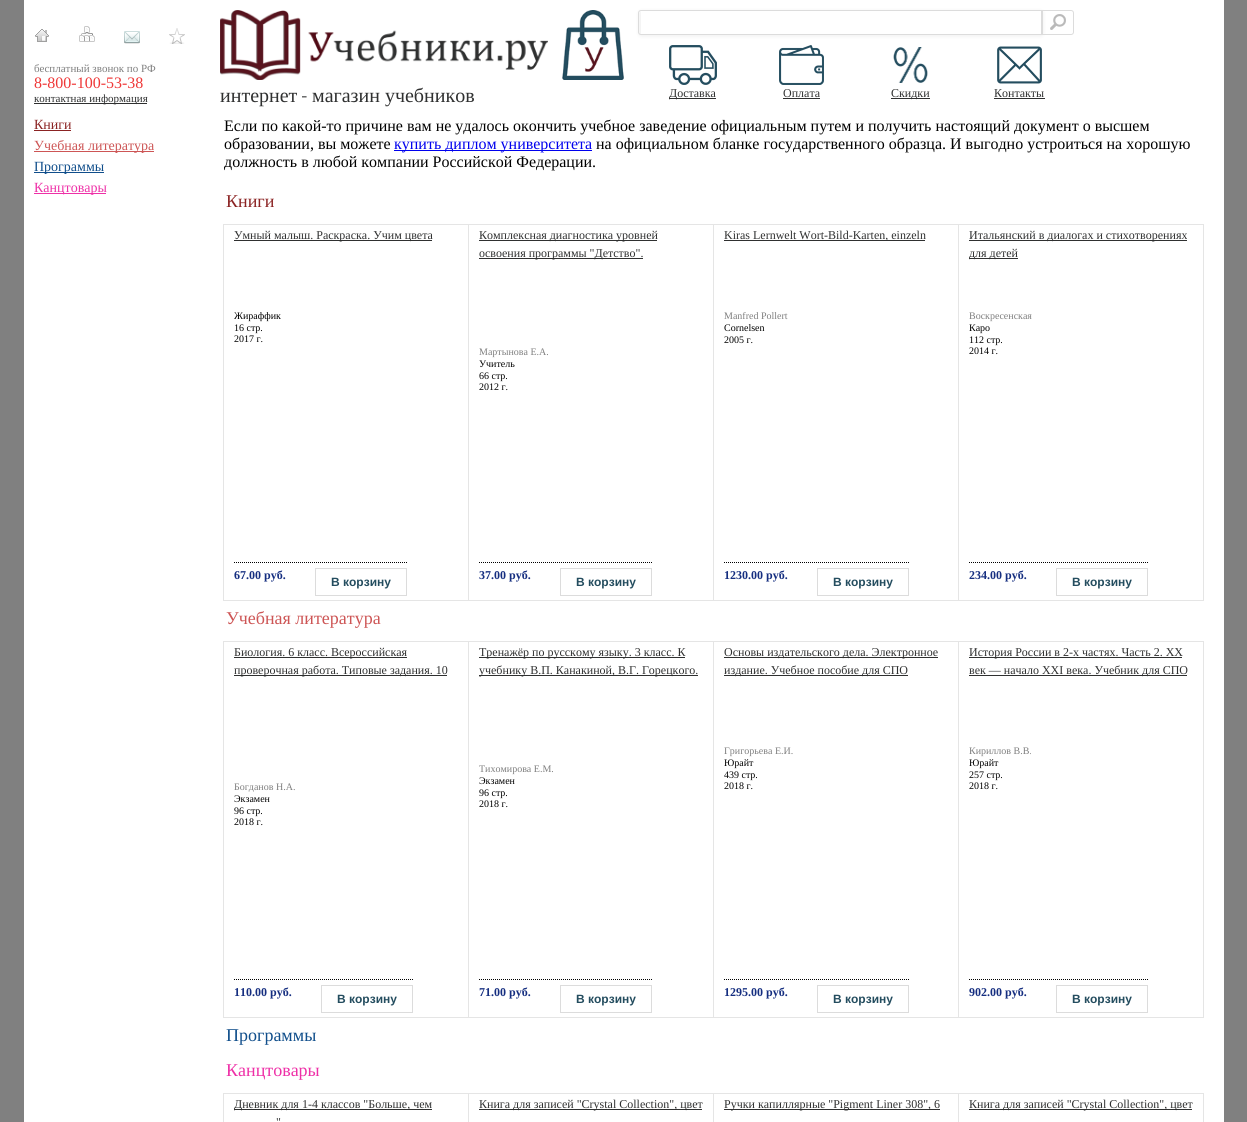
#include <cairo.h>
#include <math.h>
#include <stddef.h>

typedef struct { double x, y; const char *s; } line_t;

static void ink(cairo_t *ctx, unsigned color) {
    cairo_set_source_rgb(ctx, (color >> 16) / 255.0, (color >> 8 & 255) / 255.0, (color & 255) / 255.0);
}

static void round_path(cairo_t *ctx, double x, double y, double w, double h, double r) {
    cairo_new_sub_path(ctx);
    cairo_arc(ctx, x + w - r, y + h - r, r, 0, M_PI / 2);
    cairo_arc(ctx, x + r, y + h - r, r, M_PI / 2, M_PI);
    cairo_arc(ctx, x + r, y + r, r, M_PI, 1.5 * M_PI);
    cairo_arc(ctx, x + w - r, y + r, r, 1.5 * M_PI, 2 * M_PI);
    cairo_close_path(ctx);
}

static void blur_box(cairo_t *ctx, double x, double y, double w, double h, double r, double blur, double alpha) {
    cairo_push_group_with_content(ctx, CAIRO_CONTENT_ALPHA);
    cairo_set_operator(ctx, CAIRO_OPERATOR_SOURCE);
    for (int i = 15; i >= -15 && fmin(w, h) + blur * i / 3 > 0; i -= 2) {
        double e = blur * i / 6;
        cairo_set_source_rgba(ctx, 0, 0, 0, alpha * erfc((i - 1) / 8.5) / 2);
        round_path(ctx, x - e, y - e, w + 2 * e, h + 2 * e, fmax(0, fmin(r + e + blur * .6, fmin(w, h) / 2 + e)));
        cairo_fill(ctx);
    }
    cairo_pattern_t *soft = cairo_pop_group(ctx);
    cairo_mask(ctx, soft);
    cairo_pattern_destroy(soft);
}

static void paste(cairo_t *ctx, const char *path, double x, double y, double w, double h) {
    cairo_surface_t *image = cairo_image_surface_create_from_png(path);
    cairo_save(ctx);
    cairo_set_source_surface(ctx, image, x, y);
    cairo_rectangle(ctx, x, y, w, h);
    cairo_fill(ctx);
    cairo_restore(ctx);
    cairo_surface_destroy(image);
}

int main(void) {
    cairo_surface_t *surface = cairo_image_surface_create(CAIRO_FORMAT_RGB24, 1247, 1122);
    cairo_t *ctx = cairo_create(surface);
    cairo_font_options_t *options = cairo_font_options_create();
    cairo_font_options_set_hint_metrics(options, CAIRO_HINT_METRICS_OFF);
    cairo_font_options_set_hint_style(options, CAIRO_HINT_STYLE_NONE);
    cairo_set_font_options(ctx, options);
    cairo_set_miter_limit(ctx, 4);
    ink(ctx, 0x808080);
    cairo_paint(ctx);
    ink(ctx, 0xFFFFFF);
    cairo_rectangle(ctx, 24, 0, 1200, 1122);
    cairo_fill(ctx);
    paste(ctx, "media/1.png", 562, 10, 62, 70);
    paste(ctx, "media/2.png", 35, 29, 14, 13);
    paste(ctx, "media/3.png", 79, 26, 16, 16);
    paste(ctx, "media/4.png", 124, 31, 16, 13);
    paste(ctx, "media/5.png", 169, 28, 16, 16);
    cairo_select_font_face(ctx, "Liberation Serif", CAIRO_FONT_SLANT_NORMAL, CAIRO_FONT_WEIGHT_NORMAL);
    cairo_set_font_size(ctx, 11);
    ink(ctx, 0x7F7F7F);
    cairo_move_to(ctx, 34, 72);
    cairo_show_text(ctx, "бесплатный звонок по РФ");
    cairo_set_font_size(ctx, 16);
    ink(ctx, 0xEF3737);
    cairo_move_to(ctx, 34, 88);
    cairo_show_text(ctx, "8-800-100-53-38");
    ink(ctx, 0x2F3030);
    cairo_rectangle(ctx, 34, 103, 113, 1);
    cairo_fill(ctx);
    cairo_set_font_size(ctx, 11);
    cairo_move_to(ctx, 34, 102);
    cairo_show_text(ctx, "контактная информация");
    paste(ctx, "media/6.png", 220, 10, 328, 70);
    cairo_set_font_size(ctx, 20);
    cairo_move_to(ctx, 220, 102);
    cairo_show_text(ctx, "интернет");
    cairo_select_font_face(ctx, "Caladea", CAIRO_FONT_SLANT_NORMAL, CAIRO_FONT_WEIGHT_NORMAL);
    cairo_move_to(ctx, 301, 102);
    cairo_show_text(ctx, "-");
    cairo_select_font_face(ctx, "Liberation Serif", CAIRO_FONT_SLANT_NORMAL, CAIRO_FONT_WEIGHT_NORMAL);
    cairo_move_to(ctx, 312, 102);
    cairo_show_text(ctx, "магазин учебников");
    ink(ctx, 0xC8C8C8);
    blur_box(ctx, 638, 10, 406, 27, 4, 1.5, 0.2);
    cairo_new_path(ctx);
    cairo_move_to(ctx, 641, 10.5);
    cairo_line_to(ctx, 1041.5, 10.5);
    cairo_line_to(ctx, 1041.5, 34.5);
    cairo_line_to(ctx, 641, 34.5);
    cairo_curve_to(ctx, 639.5, 34.5, 638.5, 33.5, 638.5, 32);
    cairo_line_to(ctx, 638.5, 13);
    cairo_curve_to(ctx, 638.5, 11.5, 639.5, 10.5, 641, 10.5);
    cairo_close_path(ctx);
    ink(ctx, 0xDCDCDC);
    cairo_set_line_width(ctx, 1);
    cairo_stroke(ctx);
    ink(ctx, 0xFFFFFF);
    cairo_rectangle(ctx, 641, 11, 400, 23);
    cairo_fill(ctx);
    cairo_new_path(ctx);
    cairo_move_to(ctx, 1042.5, 10.5);
    cairo_line_to(ctx, 1071, 10.5);
    cairo_curve_to(ctx, 1072.5, 10.5, 1073.5, 11.5, 1073.5, 13);
    cairo_line_to(ctx, 1073.5, 32);
    cairo_curve_to(ctx, 1073.5, 33.5, 1072.5, 34.5, 1071, 34.5);
    cairo_line_to(ctx, 1042.5, 34.5);
    cairo_close_path(ctx);
    ink(ctx, 0xDCDCDC);
    cairo_stroke(ctx);
    paste(ctx, "media/7.png", 1050, 14, 16, 16);
    paste(ctx, "media/8.png", 669, 45, 48, 40);
    ink(ctx, 0x2F3030);
    cairo_rectangle(ctx, 669, 98, 47, 1);
    cairo_fill(ctx);
    cairo_set_font_size(ctx, 12);
    cairo_move_to(ctx, 669, 97);
    cairo_show_text(ctx, "Доставка");
    paste(ctx, "media/9.png", 779, 45, 45, 40);
    cairo_move_to(ctx, 783, 97);
    cairo_show_text(ctx, "Оплата");
    cairo_rectangle(ctx, 783, 98, 37, 1);
    cairo_fill(ctx);
    paste(ctx, "media/10.png", 893, 47, 35, 36);
    cairo_rectangle(ctx, 891, 98, 39, 1);
    cairo_fill(ctx);
    cairo_move_to(ctx, 891, 97);
    cairo_show_text(ctx, "Скидки");
    paste(ctx, "media/11.png", 997, 46, 45, 38);
    cairo_move_to(ctx, 994, 97);
    cairo_show_text(ctx, "Контакты");
    cairo_rectangle(ctx, 994, 98, 51, 1);
    cairo_fill(ctx);
    cairo_set_font_size(ctx, 14);
    ink(ctx, 0x8B2323);
    cairo_move_to(ctx, 34, 129);
    cairo_show_text(ctx, "Книги");
    cairo_rectangle(ctx, 34, 130, 37, 1);
    cairo_fill(ctx);
    ink(ctx, 0xCD5555);
    cairo_rectangle(ctx, 34, 151, 120, 1);
    cairo_fill(ctx);
    cairo_move_to(ctx, 34, 150);
    cairo_show_text(ctx, "Учебная литература");
    ink(ctx, 0x104E8B);
    cairo_rectangle(ctx, 34, 172, 70, 1);
    cairo_fill(ctx);
    cairo_move_to(ctx, 34, 171);
    cairo_show_text(ctx, "Программы");
    ink(ctx, 0xEE30A7);
    cairo_rectangle(ctx, 34, 193, 72, 1);
    cairo_fill(ctx);
    cairo_move_to(ctx, 34, 192);
    cairo_show_text(ctx, "Канцтовары");
    cairo_set_font_size(ctx, 16);
    ink(ctx, 0x000000);
    cairo_move_to(ctx, 224, 131);
    cairo_show_text(ctx, "Если по какой-то причине вам не удалось окончить учебное заведение официальным путем и получить настоящий документ о высшем");
    cairo_move_to(ctx, 224, 149);
    cairo_show_text(ctx, "образовании, вы можете");
    ink(ctx, 0x0000EE);
    cairo_rectangle(ctx, 394, 150, 198, 1);
    cairo_fill(ctx);
    cairo_move_to(ctx, 394, 149);
    cairo_show_text(ctx, "купить диплом университета");
    ink(ctx, 0x000000);
    cairo_move_to(ctx, 596, 149);
    cairo_show_text(ctx, "на официальном бланке государственного образца. И выгодно устроиться на хорошую");
    cairo_move_to(ctx, 224, 167);
    cairo_show_text(ctx, "должность в любой компании Российской Федерации.");
    cairo_set_font_size(ctx, 18);
    ink(ctx, 0x8B2323);
    cairo_move_to(ctx, 226, 207);
    cairo_show_text(ctx, "Книги");
    cairo_rectangle(ctx, 223.5, 224.5, 245, 376);
    ink(ctx, 0xE5E5E5);
    cairo_stroke(ctx);
    ink(ctx, 0x2F3030);
    cairo_rectangle(ctx, 234, 240, 198, 1);
    cairo_fill(ctx);
    cairo_set_font_size(ctx, 12);
    cairo_move_to(ctx, 234, 239);
    cairo_show_text(ctx, "Умный малыш. Раскраска. Учим цвета");
    cairo_set_font_size(ctx, 10);
    ink(ctx, 0x000000);
    {
        static const line_t items[] = {
            {234, 319, "Жираффик"},
            {234, 331, "16 стр."},
            {234, 342, "2017 г."},
        };
        for (size_t i = 0; i < sizeof items / sizeof *items; i++) {
            cairo_move_to(ctx, items[i].x, items[i].y);
            cairo_show_text(ctx, items[i].s);
        }
    }
    cairo_new_path(ctx);
    cairo_move_to(ctx, 234, 562.5);
    cairo_line_to(ctx, 407, 562.5);
    cairo_set_dash(ctx, (double[]){1, 1}, 2, 0);
    cairo_stroke(ctx);
    cairo_select_font_face(ctx, "Liberation Serif", CAIRO_FONT_SLANT_NORMAL, CAIRO_FONT_WEIGHT_BOLD);
    cairo_set_font_size(ctx, 12);
    ink(ctx, 0x152E80);
    cairo_move_to(ctx, 234, 579);
    cairo_show_text(ctx, "67.00 руб.");
    cairo_rectangle(ctx, 315.5, 568.5, 91, 27);
    ink(ctx, 0xDCDCDC);
    cairo_set_dash(ctx, NULL, 0, 0);
    cairo_stroke(ctx);
    cairo_select_font_face(ctx, "Liberation Sans", CAIRO_FONT_SLANT_NORMAL, CAIRO_FONT_WEIGHT_BOLD);
    ink(ctx, 0x244D5F);
    cairo_move_to(ctx, 331, 586);
    cairo_show_text(ctx, "В корзину");
    cairo_rectangle(ctx, 468.5, 224.5, 245, 376);
    ink(ctx, 0xE5E5E5);
    cairo_stroke(ctx);
    ink(ctx, 0x2F3030);
    cairo_rectangle(ctx, 479, 240, 178, 1);
    cairo_fill(ctx);
    cairo_select_font_face(ctx, "Liberation Serif", CAIRO_FONT_SLANT_NORMAL, CAIRO_FONT_WEIGHT_NORMAL);
    cairo_move_to(ctx, 479, 239);
    cairo_show_text(ctx, "Комплексная диагностика уровней");
    cairo_rectangle(ctx, 479, 258, 164, 1);
    cairo_fill(ctx);
    cairo_move_to(ctx, 479, 257);
    cairo_show_text(ctx, "освоения программы \"Детство\".");
    cairo_set_font_size(ctx, 10);
    ink(ctx, 0x7F7F7F);
    cairo_move_to(ctx, 479, 355);
    cairo_show_text(ctx, "Мартынова Е.А.");
    ink(ctx, 0x000000);
    {
        static const line_t items[] = {
            {479, 367, "Учитель"},
            {479, 379, "66 стр."},
            {479, 390, "2012 г."},
        };
        for (size_t i = 0; i < sizeof items / sizeof *items; i++) {
            cairo_move_to(ctx, items[i].x, items[i].y);
            cairo_show_text(ctx, items[i].s);
        }
    }
    cairo_new_path(ctx);
    cairo_move_to(ctx, 479, 562.5);
    cairo_line_to(ctx, 652, 562.5);
    cairo_set_dash(ctx, (double[]){1, 1}, 2, 0);
    cairo_stroke(ctx);
    cairo_select_font_face(ctx, "Liberation Serif", CAIRO_FONT_SLANT_NORMAL, CAIRO_FONT_WEIGHT_BOLD);
    cairo_set_font_size(ctx, 12);
    ink(ctx, 0x152E80);
    cairo_move_to(ctx, 479, 579);
    cairo_show_text(ctx, "37.00 руб.");
    cairo_rectangle(ctx, 560.5, 568.5, 91, 27);
    ink(ctx, 0xDCDCDC);
    cairo_set_dash(ctx, NULL, 0, 0);
    cairo_stroke(ctx);
    cairo_select_font_face(ctx, "Liberation Sans", CAIRO_FONT_SLANT_NORMAL, CAIRO_FONT_WEIGHT_BOLD);
    ink(ctx, 0x244D5F);
    cairo_move_to(ctx, 576, 586);
    cairo_show_text(ctx, "В корзину");
    cairo_rectangle(ctx, 713.5, 224.5, 245, 376);
    ink(ctx, 0xE5E5E5);
    cairo_stroke(ctx);
    ink(ctx, 0x2F3030);
    cairo_rectangle(ctx, 724, 240, 201, 1);
    cairo_fill(ctx);
    cairo_select_font_face(ctx, "Liberation Serif", CAIRO_FONT_SLANT_NORMAL, CAIRO_FONT_WEIGHT_NORMAL);
    cairo_move_to(ctx, 724, 239);
    cairo_show_text(ctx, "Kiras Lernwelt Wort-Bild-Karten, einzeln");
    cairo_set_font_size(ctx, 10);
    ink(ctx, 0x7F7F7F);
    cairo_move_to(ctx, 724, 319);
    cairo_show_text(ctx, "Manfred Pollert");
    ink(ctx, 0x000000);
    cairo_move_to(ctx, 724, 331);
    cairo_show_text(ctx, "Cornelsen");
    cairo_move_to(ctx, 724, 343);
    cairo_show_text(ctx, "2005 г.");
    cairo_new_path(ctx);
    cairo_move_to(ctx, 724, 562.5);
    cairo_line_to(ctx, 909, 562.5);
    cairo_set_dash(ctx, (double[]){1, 1}, 2, 0);
    cairo_stroke(ctx);
    cairo_select_font_face(ctx, "Liberation Serif", CAIRO_FONT_SLANT_NORMAL, CAIRO_FONT_WEIGHT_BOLD);
    cairo_set_font_size(ctx, 12);
    ink(ctx, 0x152E80);
    cairo_move_to(ctx, 724, 579);
    cairo_show_text(ctx, "1230.00 руб.");
    cairo_rectangle(ctx, 817.5, 568.5, 91, 27);
    ink(ctx, 0xDCDCDC);
    cairo_set_dash(ctx, NULL, 0, 0);
    cairo_stroke(ctx);
    cairo_select_font_face(ctx, "Liberation Sans", CAIRO_FONT_SLANT_NORMAL, CAIRO_FONT_WEIGHT_BOLD);
    ink(ctx, 0x244D5F);
    cairo_move_to(ctx, 833, 586);
    cairo_show_text(ctx, "В корзину");
    cairo_rectangle(ctx, 958.5, 224.5, 245, 376);
    ink(ctx, 0xE5E5E5);
    cairo_stroke(ctx);
    ink(ctx, 0x2F3030);
    cairo_rectangle(ctx, 969, 240, 218, 1);
    cairo_fill(ctx);
    cairo_select_font_face(ctx, "Liberation Serif", CAIRO_FONT_SLANT_NORMAL, CAIRO_FONT_WEIGHT_NORMAL);
    cairo_move_to(ctx, 969, 239);
    cairo_show_text(ctx, "Итальянский в диалогах и стихотворениях");
    cairo_rectangle(ctx, 969, 258, 49, 1);
    cairo_fill(ctx);
    cairo_save(ctx);
    cairo_rectangle(ctx, 969, 225, 229, 40);
    cairo_clip(ctx);
    cairo_move_to(ctx, 969, 257);
    cairo_show_text(ctx, "для детей");
    cairo_restore(ctx);
    cairo_set_font_size(ctx, 10);
    ink(ctx, 0x7F7F7F);
    cairo_move_to(ctx, 969, 319);
    cairo_show_text(ctx, "Воскресенская");
    ink(ctx, 0x000000);
    {
        static const line_t items[] = {
            {969, 331, "Каро"},
            {969, 343, "112 стр."},
            {969, 354, "2014 г."},
        };
        for (size_t i = 0; i < sizeof items / sizeof *items; i++) {
            cairo_move_to(ctx, items[i].x, items[i].y);
            cairo_show_text(ctx, items[i].s);
        }
    }
    cairo_new_path(ctx);
    cairo_move_to(ctx, 969, 562.5);
    cairo_line_to(ctx, 1148, 562.5);
    cairo_set_dash(ctx, (double[]){1, 1}, 2, 0);
    cairo_stroke(ctx);
    cairo_select_font_face(ctx, "Liberation Serif", CAIRO_FONT_SLANT_NORMAL, CAIRO_FONT_WEIGHT_BOLD);
    cairo_set_font_size(ctx, 12);
    ink(ctx, 0x152E80);
    cairo_move_to(ctx, 969, 579);
    cairo_show_text(ctx, "234.00 руб.");
    cairo_rectangle(ctx, 1056.5, 568.5, 91, 27);
    ink(ctx, 0xDCDCDC);
    cairo_set_dash(ctx, NULL, 0, 0);
    cairo_stroke(ctx);
    cairo_select_font_face(ctx, "Liberation Sans", CAIRO_FONT_SLANT_NORMAL, CAIRO_FONT_WEIGHT_BOLD);
    ink(ctx, 0x244D5F);
    cairo_move_to(ctx, 1072, 586);
    cairo_show_text(ctx, "В корзину");
    cairo_select_font_face(ctx, "Liberation Serif", CAIRO_FONT_SLANT_NORMAL, CAIRO_FONT_WEIGHT_NORMAL);
    cairo_set_font_size(ctx, 18);
    ink(ctx, 0xCD5555);
    cairo_move_to(ctx, 226, 624);
    cairo_show_text(ctx, "Учебная литература");
    cairo_rectangle(ctx, 223.5, 641.5, 245, 376);
    ink(ctx, 0xE5E5E5);
    cairo_stroke(ctx);
    ink(ctx, 0x2F3030);
    cairo_rectangle(ctx, 234, 657, 173, 1);
    cairo_fill(ctx);
    cairo_set_font_size(ctx, 12);
    cairo_move_to(ctx, 234, 656);
    cairo_show_text(ctx, "Биология. 6 класс. Всероссийская");
    cairo_rectangle(ctx, 234, 675, 213, 1);
    cairo_fill(ctx);
    cairo_move_to(ctx, 234, 674);
    cairo_show_text(ctx, "проверочная работа. Типовые задания. 10");
    cairo_set_font_size(ctx, 10);
    ink(ctx, 0x7F7F7F);
    cairo_move_to(ctx, 234, 790);
    cairo_show_text(ctx, "Богданов Н.А.");
    ink(ctx, 0x000000);
    {
        static const line_t items[] = {
            {234, 802, "Экзамен"},
            {234, 814, "96 стр."},
            {234, 825, "2018 г."},
        };
        for (size_t i = 0; i < sizeof items / sizeof *items; i++) {
            cairo_move_to(ctx, items[i].x, items[i].y);
            cairo_show_text(ctx, items[i].s);
        }
    }
    cairo_new_path(ctx);
    cairo_move_to(ctx, 234, 979.5);
    cairo_line_to(ctx, 413, 979.5);
    cairo_set_dash(ctx, (double[]){1, 1}, 2, 0);
    cairo_stroke(ctx);
    cairo_select_font_face(ctx, "Liberation Serif", CAIRO_FONT_SLANT_NORMAL, CAIRO_FONT_WEIGHT_BOLD);
    cairo_set_font_size(ctx, 12);
    ink(ctx, 0x152E80);
    cairo_move_to(ctx, 234, 996);
    cairo_show_text(ctx, "110.00 руб.");
    cairo_rectangle(ctx, 321.5, 985.5, 91, 27);
    ink(ctx, 0xDCDCDC);
    cairo_set_dash(ctx, NULL, 0, 0);
    cairo_stroke(ctx);
    cairo_select_font_face(ctx, "Liberation Sans", CAIRO_FONT_SLANT_NORMAL, CAIRO_FONT_WEIGHT_BOLD);
    ink(ctx, 0x244D5F);
    cairo_move_to(ctx, 337, 1003);
    cairo_show_text(ctx, "В корзину");
    cairo_rectangle(ctx, 468.5, 641.5, 245, 376);
    ink(ctx, 0xE5E5E5);
    cairo_stroke(ctx);
    ink(ctx, 0x2F3030);
    cairo_rectangle(ctx, 479, 657, 206, 1);
    cairo_fill(ctx);
    cairo_select_font_face(ctx, "Liberation Serif", CAIRO_FONT_SLANT_NORMAL, CAIRO_FONT_WEIGHT_NORMAL);
    cairo_move_to(ctx, 479, 656);
    cairo_show_text(ctx, "Тренажёр по русскому языку. 3 класс. К");
    cairo_rectangle(ctx, 479, 675, 219, 1);
    cairo_fill(ctx);
    cairo_save(ctx);
    cairo_rectangle(ctx, 479, 642, 229, 40);
    cairo_clip(ctx);
    cairo_move_to(ctx, 479, 674);
    cairo_show_text(ctx, "учебнику В.П. Канакиной, В.Г. Горецкого.");
    cairo_restore(ctx);
    cairo_set_font_size(ctx, 10);
    ink(ctx, 0x7F7F7F);
    cairo_move_to(ctx, 479, 772);
    cairo_show_text(ctx, "Тихомирова Е.М.");
    ink(ctx, 0x000000);
    {
        static const line_t items[] = {
            {479, 784, "Экзамен"},
            {479, 796, "96 стр."},
            {479, 807, "2018 г."},
        };
        for (size_t i = 0; i < sizeof items / sizeof *items; i++) {
            cairo_move_to(ctx, items[i].x, items[i].y);
            cairo_show_text(ctx, items[i].s);
        }
    }
    cairo_new_path(ctx);
    cairo_move_to(ctx, 479, 979.5);
    cairo_line_to(ctx, 652, 979.5);
    cairo_set_dash(ctx, (double[]){1, 1}, 2, 0);
    cairo_stroke(ctx);
    cairo_select_font_face(ctx, "Liberation Serif", CAIRO_FONT_SLANT_NORMAL, CAIRO_FONT_WEIGHT_BOLD);
    cairo_set_font_size(ctx, 12);
    ink(ctx, 0x152E80);
    cairo_move_to(ctx, 479, 996);
    cairo_show_text(ctx, "71.00 руб.");
    cairo_rectangle(ctx, 560.5, 985.5, 91, 27);
    ink(ctx, 0xDCDCDC);
    cairo_set_dash(ctx, NULL, 0, 0);
    cairo_stroke(ctx);
    cairo_select_font_face(ctx, "Liberation Sans", CAIRO_FONT_SLANT_NORMAL, CAIRO_FONT_WEIGHT_BOLD);
    ink(ctx, 0x244D5F);
    cairo_move_to(ctx, 576, 1003);
    cairo_show_text(ctx, "В корзину");
    cairo_rectangle(ctx, 713.5, 641.5, 245, 376);
    ink(ctx, 0xE5E5E5);
    cairo_stroke(ctx);
    ink(ctx, 0x2F3030);
    cairo_rectangle(ctx, 724, 657, 214, 1);
    cairo_fill(ctx);
    cairo_select_font_face(ctx, "Liberation Serif", CAIRO_FONT_SLANT_NORMAL, CAIRO_FONT_WEIGHT_NORMAL);
    cairo_move_to(ctx, 724, 656);
    cairo_show_text(ctx, "Основы издательского дела. Электронное");
    cairo_rectangle(ctx, 724, 675, 184, 1);
    cairo_fill(ctx);
    cairo_move_to(ctx, 724, 674);
    cairo_show_text(ctx, "издание. Учебное пособие для СПО");
    cairo_set_font_size(ctx, 10);
    ink(ctx, 0x7F7F7F);
    cairo_move_to(ctx, 724, 754);
    cairo_show_text(ctx, "Григорьева Е.И.");
    ink(ctx, 0x000000);
    {
        static const line_t items[] = {
            {724, 766, "Юрайт"},
            {724, 778, "439 стр."},
            {724, 789, "2018 г."},
        };
        for (size_t i = 0; i < sizeof items / sizeof *items; i++) {
            cairo_move_to(ctx, items[i].x, items[i].y);
            cairo_show_text(ctx, items[i].s);
        }
    }
    cairo_new_path(ctx);
    cairo_move_to(ctx, 724, 979.5);
    cairo_line_to(ctx, 909, 979.5);
    cairo_set_dash(ctx, (double[]){1, 1}, 2, 0);
    cairo_stroke(ctx);
    cairo_select_font_face(ctx, "Liberation Serif", CAIRO_FONT_SLANT_NORMAL, CAIRO_FONT_WEIGHT_BOLD);
    cairo_set_font_size(ctx, 12);
    ink(ctx, 0x152E80);
    cairo_move_to(ctx, 724, 996);
    cairo_show_text(ctx, "1295.00 руб.");
    cairo_rectangle(ctx, 817.5, 985.5, 91, 27);
    ink(ctx, 0xDCDCDC);
    cairo_set_dash(ctx, NULL, 0, 0);
    cairo_stroke(ctx);
    cairo_select_font_face(ctx, "Liberation Sans", CAIRO_FONT_SLANT_NORMAL, CAIRO_FONT_WEIGHT_BOLD);
    ink(ctx, 0x244D5F);
    cairo_move_to(ctx, 833, 1003);
    cairo_show_text(ctx, "В корзину");
    cairo_rectangle(ctx, 958.5, 641.5, 245, 376);
    ink(ctx, 0xE5E5E5);
    cairo_stroke(ctx);
    ink(ctx, 0x2F3030);
    cairo_rectangle(ctx, 969, 657, 213, 1);
    cairo_fill(ctx);
    cairo_select_font_face(ctx, "Liberation Serif", CAIRO_FONT_SLANT_NORMAL, CAIRO_FONT_WEIGHT_NORMAL);
    cairo_move_to(ctx, 969, 656);
    cairo_show_text(ctx, "История Pоссии в 2-х частях. Часть 2. ХХ");
    cairo_rectangle(ctx, 969, 675, 218, 1);
    cairo_fill(ctx);
    cairo_move_to(ctx, 969, 674);
    cairo_show_text(ctx, "век — начало ХХI века. Учебник для СПО");
    cairo_set_font_size(ctx, 10);
    ink(ctx, 0x7F7F7F);
    cairo_move_to(ctx, 969, 754);
    cairo_show_text(ctx, "Кириллов В.В.");
    ink(ctx, 0x000000);
    {
        static const line_t items[] = {
            {969, 766, "Юрайт"},
            {969, 778, "257 стр."},
            {969, 789, "2018 г."},
        };
        for (size_t i = 0; i < sizeof items / sizeof *items; i++) {
            cairo_move_to(ctx, items[i].x, items[i].y);
            cairo_show_text(ctx, items[i].s);
        }
    }
    cairo_new_path(ctx);
    cairo_move_to(ctx, 969, 979.5);
    cairo_line_to(ctx, 1148, 979.5);
    cairo_set_dash(ctx, (double[]){1, 1}, 2, 0);
    cairo_stroke(ctx);
    cairo_select_font_face(ctx, "Liberation Serif", CAIRO_FONT_SLANT_NORMAL, CAIRO_FONT_WEIGHT_BOLD);
    cairo_set_font_size(ctx, 12);
    ink(ctx, 0x152E80);
    cairo_move_to(ctx, 969, 996);
    cairo_show_text(ctx, "902.00 руб.");
    cairo_rectangle(ctx, 1056.5, 985.5, 91, 27);
    ink(ctx, 0xDCDCDC);
    cairo_set_dash(ctx, NULL, 0, 0);
    cairo_stroke(ctx);
    cairo_select_font_face(ctx, "Liberation Sans", CAIRO_FONT_SLANT_NORMAL, CAIRO_FONT_WEIGHT_BOLD);
    ink(ctx, 0x244D5F);
    cairo_move_to(ctx, 1072, 1003);
    cairo_show_text(ctx, "В корзину");
    cairo_select_font_face(ctx, "Liberation Serif", CAIRO_FONT_SLANT_NORMAL, CAIRO_FONT_WEIGHT_NORMAL);
    cairo_set_font_size(ctx, 18);
    ink(ctx, 0x104E8B);
    cairo_move_to(ctx, 226, 1041);
    cairo_show_text(ctx, "Программы");
    ink(ctx, 0xEE30A7);
    cairo_move_to(ctx, 226, 1076);
    cairo_show_text(ctx, "Канцтовары");
    cairo_rectangle(ctx, 223.5, 1093.5, 245, 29);
    ink(ctx, 0xE5E5E5);
    cairo_stroke(ctx);
    ink(ctx, 0x2F3030);
    cairo_rectangle(ctx, 234, 1109, 198, 1);
    cairo_fill(ctx);
    cairo_save(ctx);
    cairo_rectangle(ctx, 234, 1094, 229, 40);
    cairo_clip(ctx);
    cairo_set_font_size(ctx, 12);
    cairo_move_to(ctx, 234, 1108);
    cairo_show_text(ctx, "Дневник для 1-4 классов \"Больше, чем");
    cairo_restore(ctx);
    cairo_set_font_size(ctx, 12);
    cairo_move_to(ctx, 276, 1126);
    cairo_show_text(ctx, "\"");
    cairo_rectangle(ctx, 468.5, 1093.5, 245, 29);
    ink(ctx, 0xE5E5E5);
    cairo_stroke(ctx);
    ink(ctx, 0x2F3030);
    cairo_rectangle(ctx, 479, 1109, 223, 1);
    cairo_fill(ctx);
    cairo_move_to(ctx, 479, 1108);
    cairo_show_text(ctx, "Книга для записей \"Crystal Collection\", цвет");
    cairo_rectangle(ctx, 713.5, 1093.5, 245, 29);
    ink(ctx, 0xE5E5E5);
    cairo_stroke(ctx);
    ink(ctx, 0x2F3030);
    cairo_rectangle(ctx, 724, 1109, 216, 1);
    cairo_fill(ctx);
    cairo_move_to(ctx, 724, 1108);
    cairo_show_text(ctx, "Ручки капиллярные \"Pigment Liner 308\", 6");
    cairo_rectangle(ctx, 958.5, 1093.5, 245, 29);
    ink(ctx, 0xE5E5E5);
    cairo_stroke(ctx);
    ink(ctx, 0x2F3030);
    cairo_rectangle(ctx, 969, 1109, 223, 1);
    cairo_fill(ctx);
    cairo_move_to(ctx, 969, 1108);
    cairo_show_text(ctx, "Книга для записей \"Crystal Collection\", цвет");
    cairo_surface_write_to_png(surface, "image.png");
    cairo_font_options_destroy(options);
    cairo_destroy(ctx);
    cairo_surface_destroy(surface);
    return 0;
}
